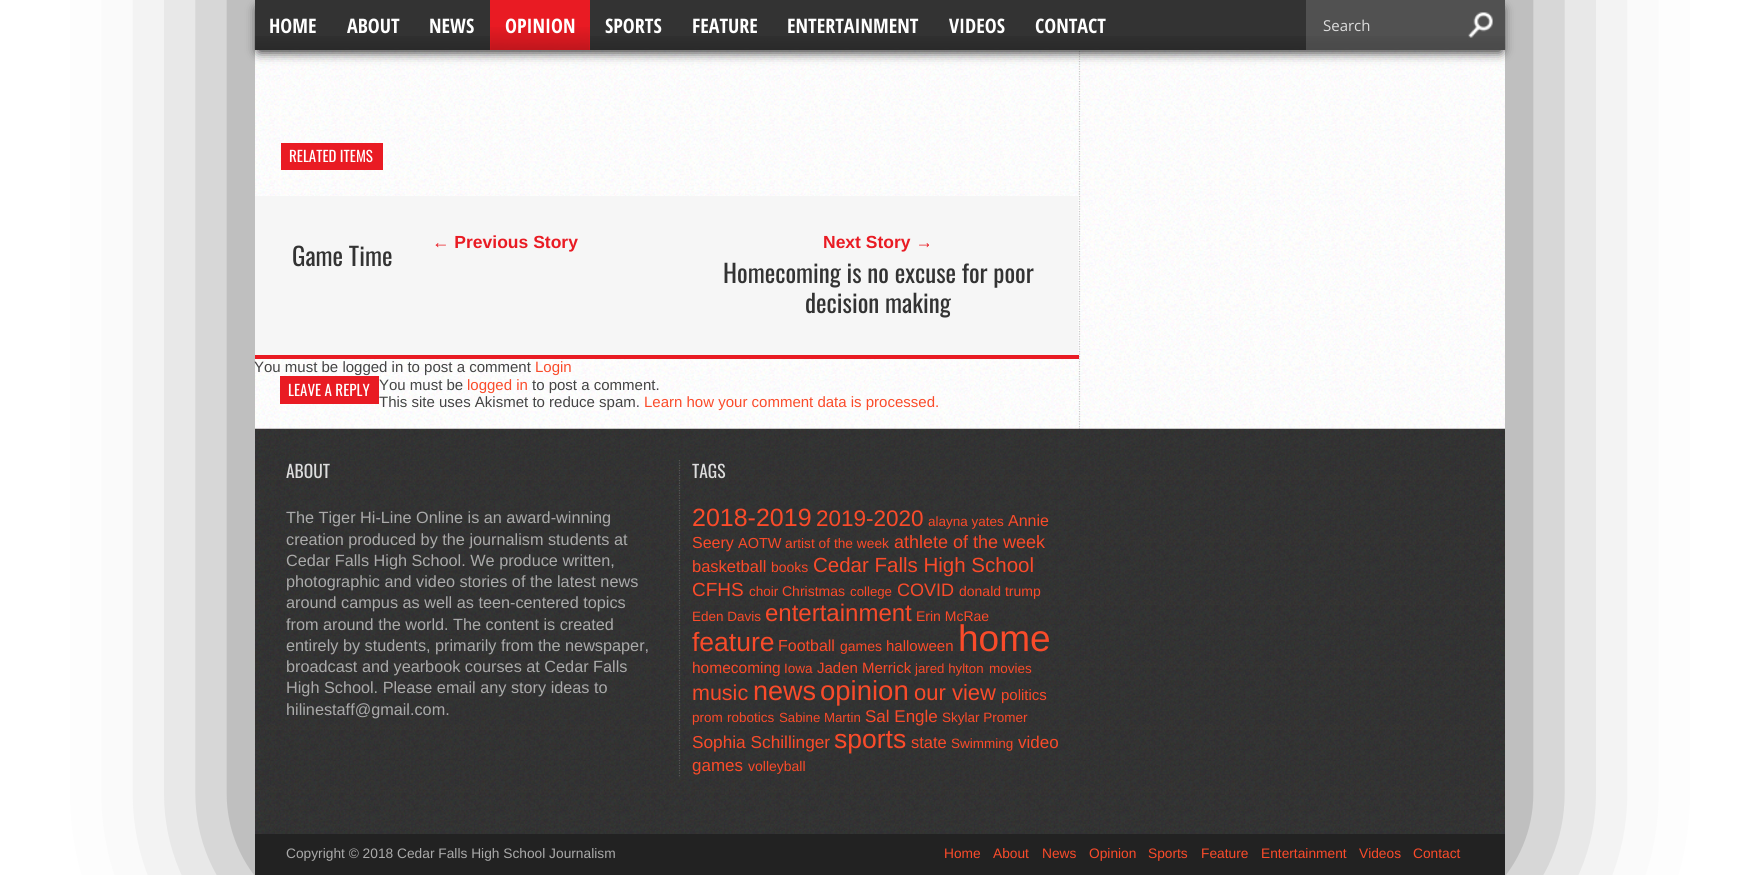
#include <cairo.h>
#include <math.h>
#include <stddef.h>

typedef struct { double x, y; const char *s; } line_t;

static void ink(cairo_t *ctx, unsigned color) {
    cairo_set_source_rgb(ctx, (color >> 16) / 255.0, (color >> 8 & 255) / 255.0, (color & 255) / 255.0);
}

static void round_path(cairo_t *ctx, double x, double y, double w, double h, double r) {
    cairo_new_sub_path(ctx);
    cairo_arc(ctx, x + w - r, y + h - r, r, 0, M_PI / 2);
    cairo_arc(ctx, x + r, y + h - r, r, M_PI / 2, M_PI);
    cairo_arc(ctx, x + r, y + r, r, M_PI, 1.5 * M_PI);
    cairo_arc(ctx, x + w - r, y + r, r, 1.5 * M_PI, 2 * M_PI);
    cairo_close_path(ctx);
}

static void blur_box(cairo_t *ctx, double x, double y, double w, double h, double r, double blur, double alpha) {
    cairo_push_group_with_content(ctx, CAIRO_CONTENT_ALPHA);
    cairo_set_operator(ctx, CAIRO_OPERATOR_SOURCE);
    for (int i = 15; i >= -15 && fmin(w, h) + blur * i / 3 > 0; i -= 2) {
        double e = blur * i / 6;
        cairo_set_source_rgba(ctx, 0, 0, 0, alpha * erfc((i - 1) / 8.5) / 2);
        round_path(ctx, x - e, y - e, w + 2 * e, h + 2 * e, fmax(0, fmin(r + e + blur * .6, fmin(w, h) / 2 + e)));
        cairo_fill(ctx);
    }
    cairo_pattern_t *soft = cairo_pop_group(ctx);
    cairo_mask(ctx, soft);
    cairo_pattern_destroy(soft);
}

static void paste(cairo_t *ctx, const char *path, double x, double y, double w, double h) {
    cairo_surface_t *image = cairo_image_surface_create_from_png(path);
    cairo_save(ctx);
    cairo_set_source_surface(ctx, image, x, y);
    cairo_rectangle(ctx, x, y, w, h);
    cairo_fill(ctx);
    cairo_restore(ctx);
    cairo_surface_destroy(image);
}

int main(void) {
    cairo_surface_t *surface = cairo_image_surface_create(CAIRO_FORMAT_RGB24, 1758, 875);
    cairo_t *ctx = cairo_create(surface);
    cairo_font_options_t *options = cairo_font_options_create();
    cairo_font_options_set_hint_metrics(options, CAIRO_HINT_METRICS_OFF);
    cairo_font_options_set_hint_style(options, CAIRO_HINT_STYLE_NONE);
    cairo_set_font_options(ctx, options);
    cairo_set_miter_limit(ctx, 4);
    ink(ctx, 0xFFFFFF);
    cairo_paint(ctx);
    ink(ctx, 0x000000);
    blur_box(ctx, 305, -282, 1150, 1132, 0, 94, 1);
    paste(ctx, "media/4.png", 255, 50, 1250, 379);
    cairo_new_path(ctx);
    cairo_move_to(ctx, 1079.5, -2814);
    cairo_line_to(ctx, 1079.5, 429);
    ink(ctx, 0xCCCCCC);
    cairo_set_line_width(ctx, 1.2);
    cairo_set_dash(ctx, (double[]){1.25, 1.25}, 2, 0);
    cairo_stroke(ctx);
    ink(ctx, 0x000000);
    blur_box(ctx, 259, 9, 1242, 42, 0, 6, 1);
    ink(ctx, 0x333333);
    cairo_rectangle(ctx, 255, 0, 1250, 50);
    cairo_fill(ctx);
    paste(ctx, "media/1.png", 254, 36, 1252, 14);
    cairo_select_font_face(ctx, "Open Sans Condensed", CAIRO_FONT_SLANT_NORMAL, CAIRO_FONT_WEIGHT_BOLD);
    cairo_set_font_size(ctx, 20);
    ink(ctx, 0xFFFFFF);
    {
        static const line_t items[] = {
            {269, 33, "HOME"},
            {347, 33, "ABOUT"},
            {429, 33, "NEWS"},
        };
        for (size_t i = 0; i < sizeof items / sizeof *items; i++) {
            cairo_move_to(ctx, items[i].x, items[i].y);
            cairo_show_text(ctx, items[i].s);
        }
    }
    ink(ctx, 0xE91B23);
    cairo_rectangle(ctx, 490, 0, 100, 50);
    cairo_fill(ctx);
    paste(ctx, "media/2.png", 490, 27, 100, 23);
    ink(ctx, 0xFFFFFF);
    {
        static const line_t items[] = {
            {505, 33, "OPINION"},
            {605, 33, "SPORTS"},
            {692, 33, "FEATURE"},
            {787, 33, "ENTERTAINMENT"},
            {949, 33, "VIDEOS"},
            {1035, 33, "CONTACT"},
        };
        for (size_t i = 0; i < sizeof items / sizeof *items; i++) {
            cairo_move_to(ctx, items[i].x, items[i].y);
            cairo_show_text(ctx, items[i].s);
        }
    }
    cairo_set_source_rgba(ctx, 1, 1, 1, 0.15);
    cairo_rectangle(ctx, 1306, 0, 199, 50);
    cairo_fill(ctx);
    paste(ctx, "media/3.png", 1468, 12, 25, 26);
    cairo_select_font_face(ctx, "Open Sans", CAIRO_FONT_SLANT_NORMAL, CAIRO_FONT_WEIGHT_NORMAL);
    cairo_set_font_size(ctx, 15);
    ink(ctx, 0xDDDDDD);
    cairo_move_to(ctx, 1323, 31);
    cairo_show_text(ctx, "Search");
    ink(ctx, 0xE91B23);
    cairo_rectangle(ctx, 281, 143, 102, 27);
    cairo_fill(ctx);
    cairo_select_font_face(ctx, "Oswald", CAIRO_FONT_SLANT_NORMAL, CAIRO_FONT_WEIGHT_NORMAL);
    ink(ctx, 0xFFFFFF);
    cairo_move_to(ctx, 289, 162);
    cairo_show_text(ctx, "RELATED ITEMS");
    ink(ctx, 0xF6F6F6);
    cairo_rectangle(ctx, 255, 196, 823, 159);
    cairo_fill(ctx);
    cairo_set_font_size(ctx, 25);
    ink(ctx, 0x333333);
    cairo_move_to(ctx, 292, 266);
    cairo_show_text(ctx, "Game Time");
    cairo_select_font_face(ctx, "Liberation Sans", CAIRO_FONT_SLANT_NORMAL, CAIRO_FONT_WEIGHT_BOLD);
    cairo_set_font_size(ctx, 17.5);
    ink(ctx, 0xE91B23);
    cairo_move_to(ctx, 432, 248);
    cairo_show_text(ctx, "← Previous Story");
    cairo_move_to(ctx, 823, 248);
    cairo_show_text(ctx, "Next Story →");
    cairo_select_font_face(ctx, "Oswald", CAIRO_FONT_SLANT_NORMAL, CAIRO_FONT_WEIGHT_NORMAL);
    cairo_set_font_size(ctx, 25);
    ink(ctx, 0x333333);
    cairo_move_to(ctx, 723, 283);
    cairo_show_text(ctx, "Homecoming is no excuse for poor");
    cairo_move_to(ctx, 805, 313);
    cairo_show_text(ctx, "decision making");
    ink(ctx, 0xE91B23);
    cairo_rectangle(ctx, 255, 355, 824, 4);
    cairo_fill(ctx);
    cairo_select_font_face(ctx, "Liberation Sans", CAIRO_FONT_SLANT_NORMAL, CAIRO_FONT_WEIGHT_NORMAL);
    cairo_set_font_size(ctx, 15);
    ink(ctx, 0x444444);
    cairo_move_to(ctx, 254, 372);
    cairo_show_text(ctx, "You must be logged in to post a comment");
    ink(ctx, 0xFA4B2A);
    cairo_move_to(ctx, 535, 372);
    cairo_show_text(ctx, "Login");
    ink(ctx, 0x444444);
    cairo_move_to(ctx, 379, 390);
    cairo_show_text(ctx, "You must be");
    cairo_move_to(ctx, 379, 407);
    cairo_show_text(ctx, "This site uses Akismet to reduce spam.");
    ink(ctx, 0xE91B23);
    cairo_rectangle(ctx, 280, 376, 99, 28);
    cairo_fill(ctx);
    cairo_select_font_face(ctx, "Oswald", CAIRO_FONT_SLANT_NORMAL, CAIRO_FONT_WEIGHT_NORMAL);
    ink(ctx, 0xFFFFFF);
    cairo_move_to(ctx, 288, 396);
    cairo_show_text(ctx, "LEAVE A REPLY");
    cairo_select_font_face(ctx, "Liberation Sans", CAIRO_FONT_SLANT_NORMAL, CAIRO_FONT_WEIGHT_NORMAL);
    ink(ctx, 0xFA4B2A);
    cairo_move_to(ctx, 467, 390);
    cairo_show_text(ctx, "logged in");
    ink(ctx, 0x444444);
    cairo_move_to(ctx, 532, 390);
    cairo_show_text(ctx, "to post a comment.");
    ink(ctx, 0xFA4B2A);
    cairo_move_to(ctx, 644, 407);
    cairo_show_text(ctx, "Learn how your comment data is processed.");
    paste(ctx, "media/5.png", 255, 428, 1250, 406);
    cairo_select_font_face(ctx, "Oswald", CAIRO_FONT_SLANT_NORMAL, CAIRO_FONT_WEIGHT_NORMAL);
    cairo_set_font_size(ctx, 17.5);
    ink(ctx, 0xDDDDDD);
    cairo_move_to(ctx, 286, 478);
    cairo_show_text(ctx, "ABOUT");
    cairo_select_font_face(ctx, "Liberation Sans", CAIRO_FONT_SLANT_NORMAL, CAIRO_FONT_WEIGHT_NORMAL);
    cairo_set_font_size(ctx, 16.25);
    ink(ctx, 0xAAAAAA);
    {
        static const line_t items[] = {
            {286, 523, "The Tiger Hi-Line Online is an award-winning"},
            {286, 545, "creation produced by the journalism students at"},
            {286, 566, "Cedar Falls High School. We produce written,"},
            {286, 587, "photographic and video stories of the latest news"},
            {286, 608, "around campus as well as teen-centered topics"},
            {286, 630, "from around the world. The content is created"},
            {286, 651, "entirely by students, primarily from the newspaper,"},
            {286, 672, "broadcast and yearbook courses at Cedar Falls"},
            {286, 693, "High School. Please email any story ideas to"},
            {286, 715, "hilinestaff@gmail.com."},
        };
        for (size_t i = 0; i < sizeof items / sizeof *items; i++) {
            cairo_move_to(ctx, items[i].x, items[i].y);
            cairo_show_text(ctx, items[i].s);
        }
    }
    cairo_new_path(ctx);
    cairo_move_to(ctx, 679.5, 460);
    cairo_line_to(ctx, 679.5, 777.5);
    ink(ctx, 0x555555);
    cairo_stroke(ctx);
    cairo_select_font_face(ctx, "Oswald", CAIRO_FONT_SLANT_NORMAL, CAIRO_FONT_WEIGHT_NORMAL);
    cairo_set_font_size(ctx, 17.5);
    ink(ctx, 0xDDDDDD);
    cairo_move_to(ctx, 692, 478);
    cairo_show_text(ctx, "TAGS");
    cairo_select_font_face(ctx, "Liberation Sans", CAIRO_FONT_SLANT_NORMAL, CAIRO_FONT_WEIGHT_NORMAL);
    cairo_set_font_size(ctx, 25);
    ink(ctx, 0xFA4B2A);
    cairo_move_to(ctx, 692, 526);
    cairo_show_text(ctx, "2018-2019");
    cairo_set_font_size(ctx, 22.5);
    cairo_move_to(ctx, 816, 526);
    cairo_show_text(ctx, "2019-2020");
    cairo_set_font_size(ctx, 13.5);
    cairo_move_to(ctx, 928, 526);
    cairo_show_text(ctx, "alayna yates");
    cairo_set_font_size(ctx, 16);
    cairo_move_to(ctx, 1008, 526);
    cairo_show_text(ctx, "Annie");
    cairo_move_to(ctx, 692, 548);
    cairo_show_text(ctx, "Seery");
    cairo_set_font_size(ctx, 14.5);
    cairo_move_to(ctx, 738, 548);
    cairo_show_text(ctx, "AOTW");
    cairo_set_font_size(ctx, 13.75);
    cairo_move_to(ctx, 785, 548);
    cairo_show_text(ctx, "artist of the week");
    cairo_set_font_size(ctx, 18);
    cairo_move_to(ctx, 894, 548);
    cairo_show_text(ctx, "athlete of the week");
    cairo_set_font_size(ctx, 16.5);
    cairo_move_to(ctx, 692, 572);
    cairo_show_text(ctx, "basketball");
    cairo_set_font_size(ctx, 14);
    cairo_move_to(ctx, 771, 572);
    cairo_show_text(ctx, "books");
    cairo_set_font_size(ctx, 20.5);
    cairo_move_to(ctx, 813, 572);
    cairo_show_text(ctx, "Cedar Falls High School");
    cairo_set_font_size(ctx, 19);
    cairo_move_to(ctx, 692, 596);
    cairo_show_text(ctx, "CFHS");
    cairo_set_font_size(ctx, 13.5);
    cairo_move_to(ctx, 749, 596);
    cairo_show_text(ctx, "choir");
    cairo_set_font_size(ctx, 14);
    cairo_move_to(ctx, 782, 596);
    cairo_show_text(ctx, "Christmas");
    cairo_set_font_size(ctx, 13.25);
    cairo_move_to(ctx, 850, 596);
    cairo_show_text(ctx, "college");
    cairo_set_font_size(ctx, 18);
    cairo_move_to(ctx, 897, 596);
    cairo_show_text(ctx, "COVID");
    cairo_set_font_size(ctx, 14);
    cairo_move_to(ctx, 959, 596);
    cairo_show_text(ctx, "donald trump");
    cairo_set_font_size(ctx, 13.5);
    cairo_move_to(ctx, 692, 621);
    cairo_show_text(ctx, "Eden Davis");
    cairo_set_font_size(ctx, 24);
    cairo_move_to(ctx, 765, 621);
    cairo_show_text(ctx, "entertainment");
    cairo_set_font_size(ctx, 14);
    cairo_move_to(ctx, 916, 621);
    cairo_show_text(ctx, "Erin McRae");
    cairo_set_font_size(ctx, 26.5);
    cairo_move_to(ctx, 692, 651);
    cairo_show_text(ctx, "feature");
    cairo_set_font_size(ctx, 16);
    cairo_move_to(ctx, 778, 651);
    cairo_show_text(ctx, "Football");
    cairo_set_font_size(ctx, 14);
    cairo_move_to(ctx, 840, 651);
    cairo_show_text(ctx, "games");
    cairo_set_font_size(ctx, 15);
    cairo_move_to(ctx, 886, 651);
    cairo_show_text(ctx, "halloween");
    cairo_set_font_size(ctx, 37);
    cairo_move_to(ctx, 958, 651);
    cairo_show_text(ctx, "home");
    cairo_set_font_size(ctx, 15.5);
    cairo_move_to(ctx, 692, 673);
    cairo_show_text(ctx, "homecoming");
    cairo_set_font_size(ctx, 13.5);
    cairo_move_to(ctx, 784, 673);
    cairo_show_text(ctx, "Iowa");
    cairo_set_font_size(ctx, 15);
    cairo_move_to(ctx, 817, 673);
    cairo_show_text(ctx, "Jaden Merrick");
    cairo_set_font_size(ctx, 13.25);
    cairo_move_to(ctx, 915, 673);
    cairo_show_text(ctx, "jared hylton");
    cairo_set_font_size(ctx, 13.5);
    cairo_move_to(ctx, 989, 673);
    cairo_show_text(ctx, "movies");
    cairo_set_font_size(ctx, 21.5);
    cairo_move_to(ctx, 692, 700);
    cairo_show_text(ctx, "music");
    cairo_set_font_size(ctx, 27);
    cairo_move_to(ctx, 753, 700);
    cairo_show_text(ctx, "news");
    cairo_set_font_size(ctx, 27.5);
    cairo_move_to(ctx, 820, 700);
    cairo_show_text(ctx, "opinion");
    cairo_set_font_size(ctx, 22);
    cairo_move_to(ctx, 914, 700);
    cairo_show_text(ctx, "our view");
    cairo_set_font_size(ctx, 15);
    cairo_move_to(ctx, 1001, 700);
    cairo_show_text(ctx, "politics");
    cairo_set_font_size(ctx, 13.5);
    cairo_move_to(ctx, 692, 722);
    cairo_show_text(ctx, "prom");
    cairo_move_to(ctx, 727, 722);
    cairo_show_text(ctx, "robotics");
    cairo_set_font_size(ctx, 13.25);
    cairo_move_to(ctx, 779, 722);
    cairo_show_text(ctx, "Sabine Martin");
    cairo_set_font_size(ctx, 17);
    cairo_move_to(ctx, 865, 722);
    cairo_show_text(ctx, "Sal Engle");
    cairo_set_font_size(ctx, 13.5);
    cairo_move_to(ctx, 942, 722);
    cairo_show_text(ctx, "Skylar Promer");
    cairo_set_font_size(ctx, 17.25);
    cairo_move_to(ctx, 692, 748);
    cairo_show_text(ctx, "Sophia Schillinger");
    cairo_set_font_size(ctx, 26.5);
    cairo_move_to(ctx, 834, 748);
    cairo_show_text(ctx, "sports");
    cairo_set_font_size(ctx, 16.5);
    cairo_move_to(ctx, 911, 748);
    cairo_show_text(ctx, "state");
    cairo_set_font_size(ctx, 13.5);
    cairo_move_to(ctx, 951, 748);
    cairo_show_text(ctx, "Swimming");
    cairo_set_font_size(ctx, 17);
    cairo_move_to(ctx, 1018, 748);
    cairo_show_text(ctx, "video");
    cairo_move_to(ctx, 692, 771);
    cairo_show_text(ctx, "games");
    cairo_set_font_size(ctx, 14);
    cairo_move_to(ctx, 748, 771);
    cairo_show_text(ctx, "volleyball");
    ink(ctx, 0x222222);
    cairo_rectangle(ctx, 255, 834, 1250, 41);
    cairo_fill(ctx);
    cairo_set_font_size(ctx, 13.75);
    ink(ctx, 0xAAAAAA);
    cairo_move_to(ctx, 286, 858);
    cairo_show_text(ctx, "Copyright © 2018 Cedar Falls High School Journalism");
    ink(ctx, 0xFA4B2A);
    {
        static const line_t items[] = {
            {944, 858, "Home"},
            {993, 858, "About"},
            {1042, 858, "News"},
            {1089, 858, "Opinion"},
            {1148, 858, "Sports"},
            {1201, 858, "Feature"},
            {1261, 858, "Entertainment"},
            {1359, 858, "Videos"},
            {1413, 858, "Contact"},
        };
        for (size_t i = 0; i < sizeof items / sizeof *items; i++) {
            cairo_move_to(ctx, items[i].x, items[i].y);
            cairo_show_text(ctx, items[i].s);
        }
    }
    cairo_surface_write_to_png(surface, "image.png");
    cairo_font_options_destroy(options);
    cairo_destroy(ctx);
    cairo_surface_destroy(surface);
    return 0;
}
